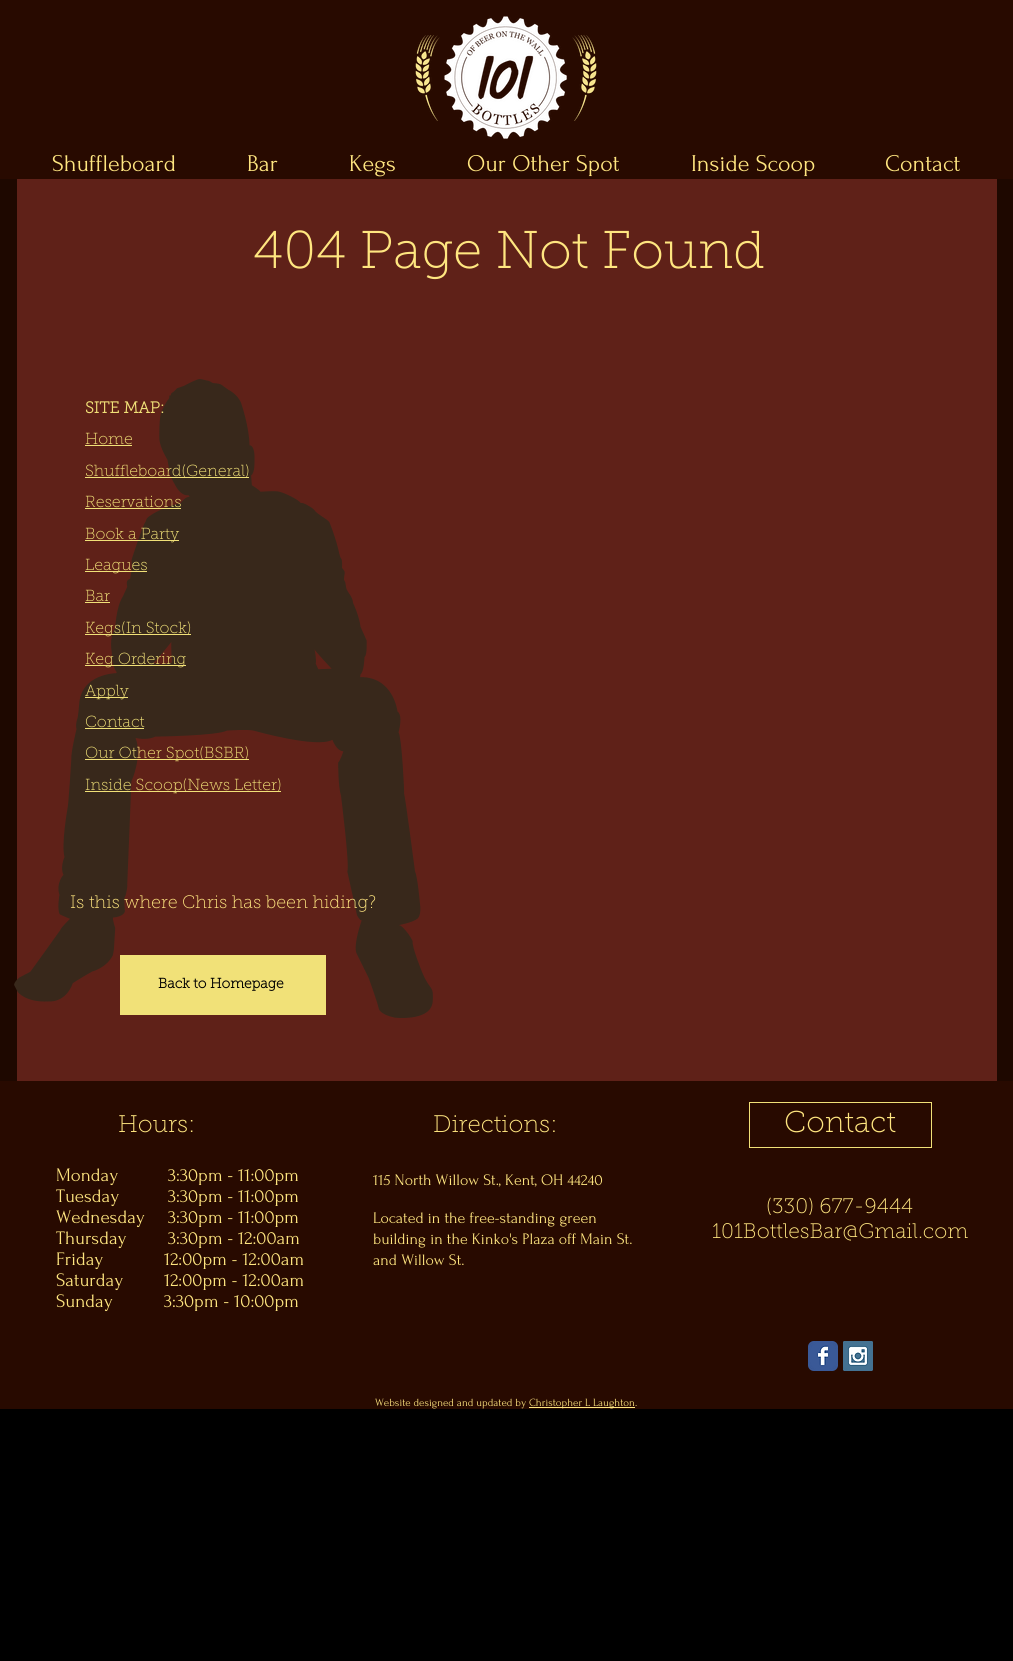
#include <cairo.h>
#include <math.h>
#include <stddef.h>

typedef struct { double x, y; const char *s; } line_t;

static void ink(cairo_t *ctx, unsigned color) {
    cairo_set_source_rgb(ctx, (color >> 16) / 255.0, (color >> 8 & 255) / 255.0, (color & 255) / 255.0);
}

static void paste(cairo_t *ctx, const char *path, double x, double y, double w, double h) {
    cairo_surface_t *image = cairo_image_surface_create_from_png(path);
    cairo_save(ctx);
    cairo_set_source_surface(ctx, image, x, y);
    cairo_rectangle(ctx, x, y, w, h);
    cairo_fill(ctx);
    cairo_restore(ctx);
    cairo_surface_destroy(image);
}

int main(void) {
    cairo_surface_t *surface = cairo_image_surface_create(CAIRO_FORMAT_RGB24, 1013, 1661);
    cairo_t *ctx = cairo_create(surface);
    cairo_font_options_t *options = cairo_font_options_create();
    cairo_font_options_set_hint_metrics(options, CAIRO_HINT_METRICS_OFF);
    cairo_font_options_set_hint_style(options, CAIRO_HINT_STYLE_NONE);
    cairo_set_font_options(ctx, options);
    cairo_set_miter_limit(ctx, 4);
    ink(ctx, 0x000000);
    cairo_paint(ctx);
    ink(ctx, 0x280A00);
    cairo_rectangle(ctx, 0, 0, 1013, 179);
    cairo_fill(ctx);
    paste(ctx, "media/1.png", 415, 35, 25, 86);
    paste(ctx, "media/2.png", 444, 16, 123, 123);
    paste(ctx, "media/3.png", 572, 35, 25, 86);
    cairo_select_font_face(ctx, "Forum", CAIRO_FONT_SLANT_NORMAL, CAIRO_FONT_WEIGHT_NORMAL);
    cairo_set_font_size(ctx, 24);
    ink(ctx, 0xFFE680);
    {
        static const line_t items[] = {
            {52, 171, "Shuffleboard"},
            {247, 171, "Bar"},
            {349, 171, "Kegs"},
            {467, 171, "Our Other Spot"},
            {691, 171, "Inside Scoop"},
            {885, 171, "Contact"},
        };
        for (size_t i = 0; i < sizeof items / sizeof *items; i++) {
            cairo_move_to(ctx, items[i].x, items[i].y);
            cairo_show_text(ctx, items[i].s);
        }
    }
    ink(ctx, 0x1E0800);
    cairo_rectangle(ctx, 0, 179, 1013, 902);
    cairo_fill(ctx);
    ink(ctx, 0x5F2118);
    cairo_rectangle(ctx, 17, 179, 980, 902);
    cairo_fill(ctx);
    cairo_select_font_face(ctx, "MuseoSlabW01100 Thin", CAIRO_FONT_SLANT_NORMAL, CAIRO_FONT_WEIGHT_NORMAL);
    cairo_set_font_size(ctx, 53);
    ink(ctx, 0xFFE680);
    cairo_move_to(ctx, 253, 268);
    cairo_show_text(ctx, "404 Page Not Found");
    paste(ctx, "media/4.png", 14, 379, 419, 639);
    cairo_select_font_face(ctx, "MuseoSlabW01100", CAIRO_FONT_SLANT_NORMAL, CAIRO_FONT_WEIGHT_BOLD);
    cairo_set_font_size(ctx, 16);
    ink(ctx, 0xF1E178);
    cairo_move_to(ctx, 85, 413);
    cairo_show_text(ctx, "SITE MAP:");
    cairo_select_font_face(ctx, "MuseoSlabW01100 Thin", CAIRO_FONT_SLANT_NORMAL, CAIRO_FONT_WEIGHT_NORMAL);
    cairo_move_to(ctx, 85, 444);
    cairo_show_text(ctx, "Home");
    cairo_rectangle(ctx, 85, 445, 47, 1);
    cairo_fill(ctx);
    cairo_rectangle(ctx, 85, 477, 164, 1);
    cairo_fill(ctx);
    cairo_move_to(ctx, 85, 476);
    cairo_show_text(ctx, "Shuffleboard(General)");
    cairo_move_to(ctx, 85, 507);
    cairo_show_text(ctx, "Reservations");
    cairo_rectangle(ctx, 85, 508, 96, 1);
    cairo_fill(ctx);
    cairo_rectangle(ctx, 85, 540, 94, 1);
    cairo_fill(ctx);
    cairo_move_to(ctx, 85, 539);
    cairo_show_text(ctx, "Book a Party");
    cairo_rectangle(ctx, 85, 571, 62, 1);
    cairo_fill(ctx);
    cairo_move_to(ctx, 85, 570);
    cairo_show_text(ctx, "Leagues");
    cairo_move_to(ctx, 85, 601);
    cairo_show_text(ctx, "Bar");
    cairo_rectangle(ctx, 85, 602, 25, 1);
    cairo_fill(ctx);
    cairo_rectangle(ctx, 85, 634, 106, 1);
    cairo_fill(ctx);
    cairo_move_to(ctx, 85, 633);
    cairo_show_text(ctx, "Kegs(In Stock)");
    cairo_rectangle(ctx, 85, 665, 101, 1);
    cairo_fill(ctx);
    cairo_move_to(ctx, 85, 664);
    cairo_show_text(ctx, "Keg Ordering");
    cairo_rectangle(ctx, 85, 697, 43, 1);
    cairo_fill(ctx);
    cairo_move_to(ctx, 85, 696);
    cairo_show_text(ctx, "Apply");
    cairo_move_to(ctx, 85, 727);
    cairo_show_text(ctx, "Contact");
    cairo_rectangle(ctx, 85, 728, 59, 1);
    cairo_fill(ctx);
    cairo_rectangle(ctx, 85, 759, 164, 1);
    cairo_fill(ctx);
    cairo_move_to(ctx, 85, 758);
    cairo_show_text(ctx, "Our Other Spot(BSBR)");
    cairo_rectangle(ctx, 85, 791, 196, 1);
    cairo_fill(ctx);
    cairo_move_to(ctx, 85, 790);
    cairo_show_text(ctx, "Inside Scoop(News Letter)");
    cairo_set_font_size(ctx, 18);
    ink(ctx, 0xFFE680);
    cairo_move_to(ctx, 70, 908);
    cairo_show_text(ctx, "Is this where Chris has been hiding?");
    ink(ctx, 0xF1E178);
    cairo_rectangle(ctx, 120, 955, 206, 60);
    cairo_fill(ctx);
    cairo_select_font_face(ctx, "MuseoSlabW01100", CAIRO_FONT_SLANT_NORMAL, CAIRO_FONT_WEIGHT_BOLD);
    cairo_set_font_size(ctx, 14);
    ink(ctx, 0x000000);
    cairo_move_to(ctx, 158, 988);
    cairo_show_text(ctx, "Back to Homepage");
    ink(ctx, 0x280A00);
    cairo_rectangle(ctx, 0, 1081, 1013, 328);
    cairo_fill(ctx);
    cairo_select_font_face(ctx, "MuseoSlabW01100 Thin", CAIRO_FONT_SLANT_NORMAL, CAIRO_FONT_WEIGHT_NORMAL);
    cairo_set_font_size(ctx, 24);
    ink(ctx, 0xFFE680);
    cairo_move_to(ctx, 118, 1132);
    cairo_show_text(ctx, "Hours:");
    cairo_move_to(ctx, 433, 1132);
    cairo_show_text(ctx, "Directions:");
    cairo_rectangle(ctx, 749.5, 1102.5, 182, 45);
    ink(ctx, 0xF1E178);
    cairo_set_line_width(ctx, 1);
    cairo_stroke(ctx);
    cairo_set_font_size(ctx, 30);
    ink(ctx, 0xFFE680);
    cairo_move_to(ctx, 784, 1132);
    cairo_show_text(ctx, "Contact");
    cairo_select_font_face(ctx, "Forum", CAIRO_FONT_SLANT_NORMAL, CAIRO_FONT_WEIGHT_NORMAL);
    cairo_set_font_size(ctx, 19);
    {
        static const line_t items[] = {
            {56, 1181, "Monday"},
            {56, 1202, "Tuesday"},
            {56, 1223, "Wednesday"},
            {56, 1244, "Thursday"},
            {56, 1265, "Friday"},
            {56, 1286, "Saturday"},
            {56, 1307, "Sunday"},
            {168, 1181, "3:30pm - 11:00pm"},
            {168, 1202, "3:30pm - 11:00pm"},
            {168, 1223, "3:30pm - 11:00pm"},
            {168, 1244, "3:30pm - 12:00am"},
            {164, 1265, "12:00pm - 12:00am"},
            {164, 1286, "12:00pm - 12:00am"},
            {164, 1307, "3:30pm - 10:00pm"},
        };
        for (size_t i = 0; i < sizeof items / sizeof *items; i++) {
            cairo_move_to(ctx, items[i].x, items[i].y);
            cairo_show_text(ctx, items[i].s);
        }
    }
    cairo_set_font_size(ctx, 16);
    {
        static const line_t items[] = {
            {373, 1185, "115 North Willow St., Kent, OH 44240"},
            {373, 1223, "Located in the free-standing green"},
            {373, 1244, "building in the Kinko's Plaza off Main St."},
            {373, 1265, "and Willow St."},
        };
        for (size_t i = 0; i < sizeof items / sizeof *items; i++) {
            cairo_move_to(ctx, items[i].x, items[i].y);
            cairo_show_text(ctx, items[i].s);
        }
    }
    cairo_select_font_face(ctx, "MuseoSlabW01100 Thin", CAIRO_FONT_SLANT_NORMAL, CAIRO_FONT_WEIGHT_NORMAL);
    cairo_set_font_size(ctx, 21);
    cairo_move_to(ctx, 766, 1213);
    cairo_show_text(ctx, "(330) 677-9444");
    cairo_move_to(ctx, 712, 1238);
    cairo_show_text(ctx, "101BottlesBar@Gmail.com");
    paste(ctx, "media/5.png", 808, 1341, 30, 30);
    paste(ctx, "media/6.png", 843, 1341, 30, 30);
    cairo_select_font_face(ctx, "Forum", CAIRO_FONT_SLANT_NORMAL, CAIRO_FONT_WEIGHT_NORMAL);
    cairo_set_font_size(ctx, 11);
    cairo_move_to(ctx, 375, 1406);
    cairo_show_text(ctx, "Website designed and updated by");
    cairo_rectangle(ctx, 529, 1407, 106, 1);
    cairo_fill(ctx);
    cairo_move_to(ctx, 529, 1406);
    cairo_show_text(ctx, "Christopher L Laughton.");
    cairo_surface_write_to_png(surface, "image.png");
    cairo_font_options_destroy(options);
    cairo_destroy(ctx);
    cairo_surface_destroy(surface);
    return 0;
}
